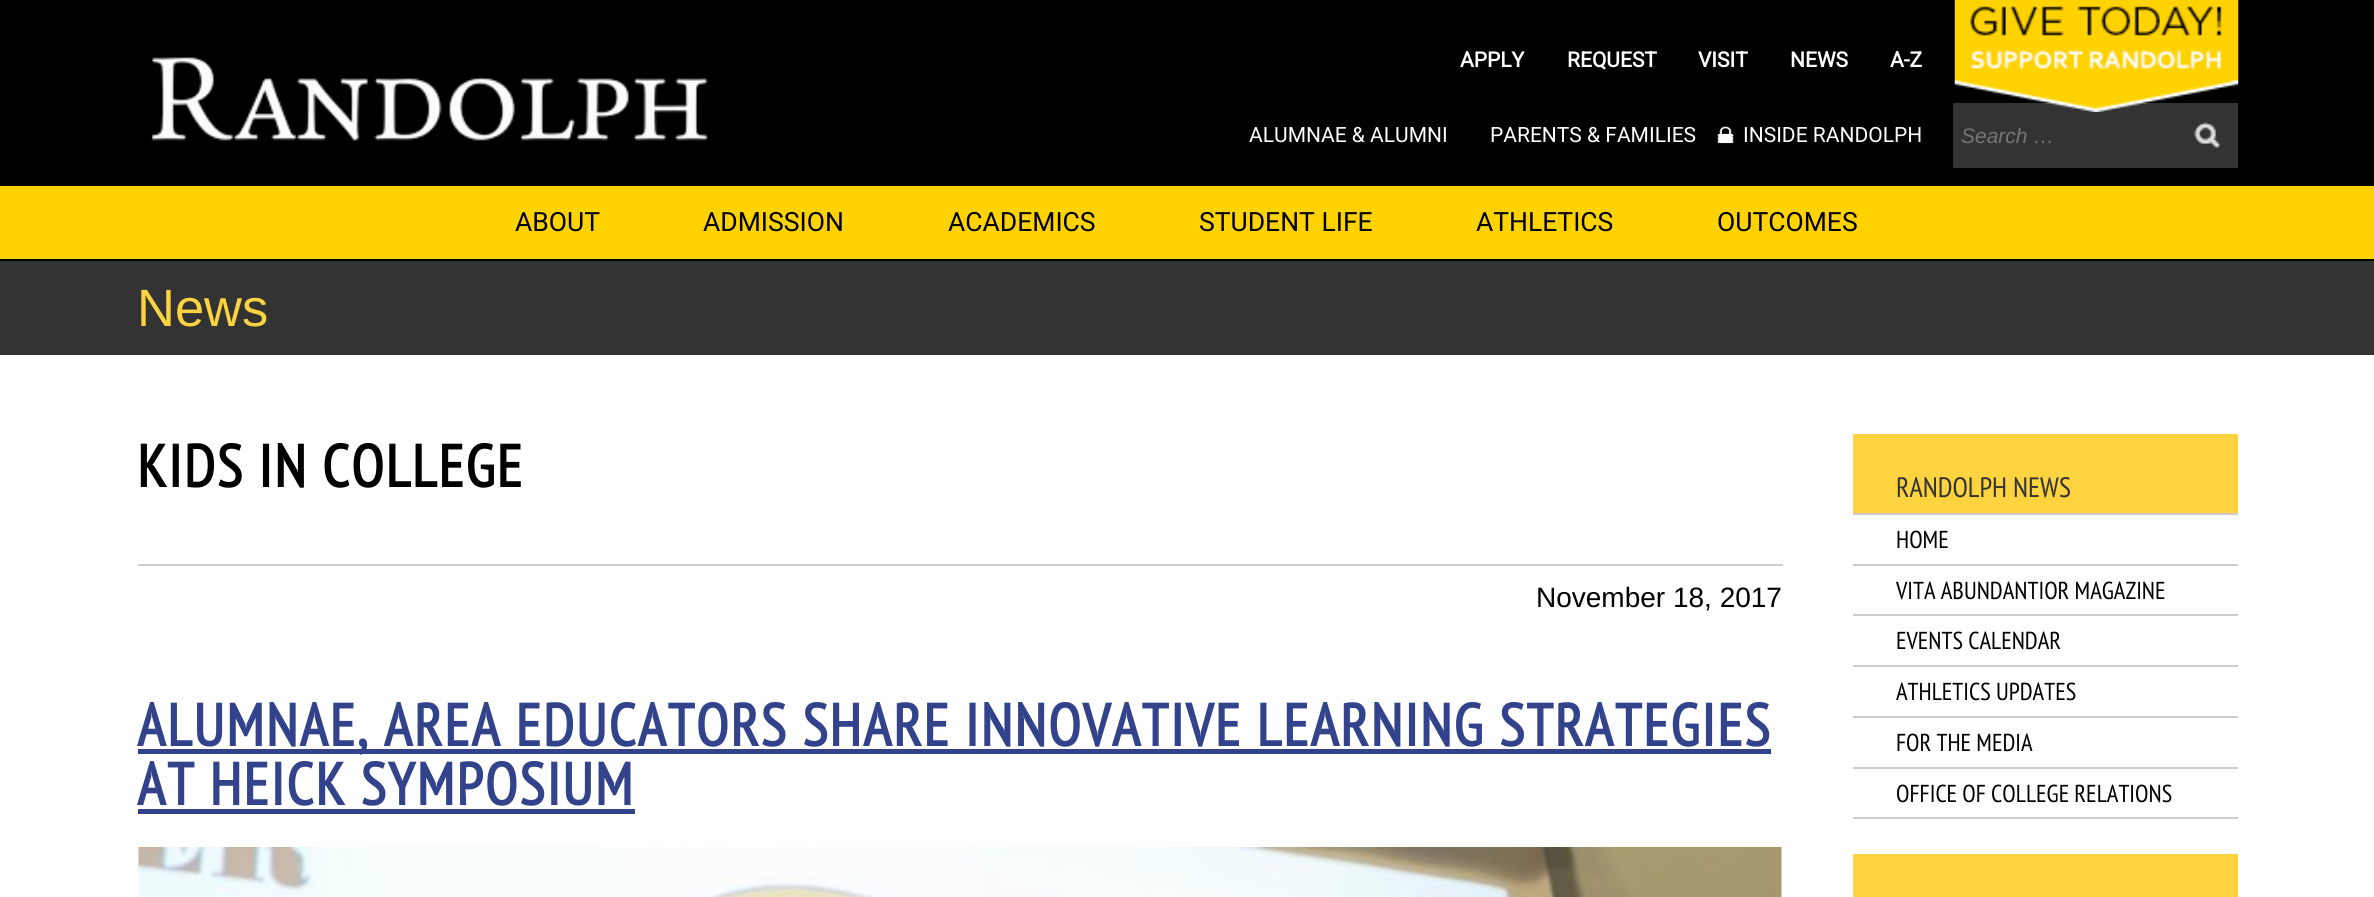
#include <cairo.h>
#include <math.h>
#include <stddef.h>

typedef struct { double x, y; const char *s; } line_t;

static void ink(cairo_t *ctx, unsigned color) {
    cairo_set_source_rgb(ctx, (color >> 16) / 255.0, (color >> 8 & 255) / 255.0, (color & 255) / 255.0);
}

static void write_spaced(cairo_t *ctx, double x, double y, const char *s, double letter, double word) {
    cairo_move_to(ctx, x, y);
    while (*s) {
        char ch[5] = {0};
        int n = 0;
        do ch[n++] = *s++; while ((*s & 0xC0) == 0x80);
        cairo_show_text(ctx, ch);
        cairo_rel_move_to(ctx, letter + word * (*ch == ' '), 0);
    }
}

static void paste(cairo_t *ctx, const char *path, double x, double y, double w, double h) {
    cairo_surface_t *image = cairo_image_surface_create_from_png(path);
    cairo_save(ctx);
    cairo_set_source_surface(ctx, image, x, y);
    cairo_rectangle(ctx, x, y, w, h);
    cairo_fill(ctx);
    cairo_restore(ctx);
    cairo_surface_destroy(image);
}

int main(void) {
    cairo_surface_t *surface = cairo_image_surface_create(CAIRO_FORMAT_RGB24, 2374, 897);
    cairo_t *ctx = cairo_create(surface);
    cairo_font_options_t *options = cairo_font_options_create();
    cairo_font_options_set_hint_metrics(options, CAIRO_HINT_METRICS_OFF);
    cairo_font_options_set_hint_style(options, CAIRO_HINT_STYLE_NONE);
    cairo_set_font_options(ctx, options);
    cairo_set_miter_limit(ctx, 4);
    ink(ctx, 0x333333);
    cairo_paint(ctx);
    ink(ctx, 0x000000);
    cairo_rectangle(ctx, 0, 0, 2374, 261);
    cairo_fill(ctx);
    paste(ctx, "media/1.png", 151, 57, 557, 84);
    cairo_select_font_face(ctx, "Roboto", CAIRO_FONT_SLANT_NORMAL, CAIRO_FONT_WEIGHT_BOLD);
    cairo_set_font_size(ctx, 21);
    ink(ctx, 0xFFFFFF);
    {
        static const line_t items[] = {
            {1460, 67, "APPLY"},
            {1567, 67, "REQUEST"},
            {1698, 67, "VISIT"},
            {1790, 67, "NEWS"},
            {1890, 67, "A-Z"},
        };
        for (size_t i = 0; i < sizeof items / sizeof *items; i++) {
            cairo_move_to(ctx, items[i].x, items[i].y);
            cairo_show_text(ctx, items[i].s);
        }
    }
    ink(ctx, 0x333333);
    cairo_rectangle(ctx, 1953, 103, 285, 65);
    cairo_fill(ctx);
    paste(ctx, "media/2.png", 1954, 0, 285, 112);
    cairo_select_font_face(ctx, "Roboto", CAIRO_FONT_SLANT_NORMAL, CAIRO_FONT_WEIGHT_NORMAL);
    ink(ctx, 0xFFFFFF);
    cairo_move_to(ctx, 1249, 142);
    cairo_show_text(ctx, "ALUMNAE & ALUMNI");
    cairo_move_to(ctx, 1490, 142);
    cairo_show_text(ctx, "PARENTS & FAMILIES");
    paste(ctx, "media/3.png", 1717, 126, 17, 18);
    cairo_move_to(ctx, 1743, 142);
    cairo_show_text(ctx, "INSIDE RANDOLPH");
    cairo_select_font_face(ctx, "Liberation Sans", CAIRO_FONT_SLANT_ITALIC, CAIRO_FONT_WEIGHT_NORMAL);
    ink(ctx, 0x757575);
    cairo_move_to(ctx, 1961, 143);
    cairo_show_text(ctx, "Search …");
    paste(ctx, "media/4.png", 2194, 122, 26, 26);
    ink(ctx, 0xFFD200);
    cairo_rectangle(ctx, 0, 186, 2374, 73);
    cairo_fill(ctx);
    cairo_select_font_face(ctx, "Roboto", CAIRO_FONT_SLANT_NORMAL, CAIRO_FONT_WEIGHT_NORMAL);
    cairo_set_font_size(ctx, 26.5);
    ink(ctx, 0x000000);
    {
        static const line_t items[] = {
            {515, 231, "ABOUT"},
            {703, 231, "ADMISSION"},
            {948, 231, "ACADEMICS"},
            {1199, 231, "STUDENT LIFE"},
            {1476, 231, "ATHLETICS"},
            {1717, 231, "OUTCOMES"},
        };
        for (size_t i = 0; i < sizeof items / sizeof *items; i++) {
            cairo_move_to(ctx, items[i].x, items[i].y);
            cairo_show_text(ctx, items[i].s);
        }
    }
    cairo_select_font_face(ctx, "Liberation Sans", CAIRO_FONT_SLANT_NORMAL, CAIRO_FONT_WEIGHT_NORMAL);
    cairo_set_font_size(ctx, 52.5);
    ink(ctx, 0xFDD440);
    cairo_move_to(ctx, 137, 326);
    cairo_show_text(ctx, "News");
    ink(ctx, 0xFFFFFF);
    cairo_rectangle(ctx, 0, 355, 2374, 542);
    cairo_fill(ctx);
    cairo_select_font_face(ctx, "PT Sans Narrow", CAIRO_FONT_SLANT_NORMAL, CAIRO_FONT_WEIGHT_BOLD);
    cairo_set_font_size(ctx, 59.5);
    ink(ctx, 0x000000);
    write_spaced(ctx, 137, 487, "KIDS IN COLLEGE", 1.75, 0);
    ink(ctx, 0xCCCCCC);
    cairo_rectangle(ctx, 138, 564, 1645, 2);
    cairo_fill(ctx);
    cairo_select_font_face(ctx, "Liberation Sans", CAIRO_FONT_SLANT_NORMAL, CAIRO_FONT_WEIGHT_NORMAL);
    cairo_set_font_size(ctx, 28);
    ink(ctx, 0x000000);
    cairo_move_to(ctx, 1536, 607);
    cairo_show_text(ctx, "November 18, 2017");
    ink(ctx, 0x32428B);
    cairo_rectangle(ctx, 138, 749, 1633, 5);
    cairo_fill(ctx);
    cairo_select_font_face(ctx, "PT Sans Narrow", CAIRO_FONT_SLANT_NORMAL, CAIRO_FONT_WEIGHT_BOLD);
    cairo_set_font_size(ctx, 59.5);
    write_spaced(ctx, 137, 746, "ALUMNAE, AREA EDUCATORS SHARE INNOVATIVE LEARNING STRATEGIES", 1.75, 0);
    write_spaced(ctx, 137, 805, "AT HEICK SYMPOSIUM", 1.75, 0);
    cairo_rectangle(ctx, 138, 809, 497, 5);
    cairo_fill(ctx);
    paste(ctx, "media/5.png", 138, 847, 1644, 50);
    ink(ctx, 0xCCCCCC);
    cairo_rectangle(ctx, 1853, 817, 385, 2);
    cairo_fill(ctx);
    ink(ctx, 0xFDD440);
    cairo_rectangle(ctx, 1853, 434, 385, 79);
    cairo_fill(ctx);
    cairo_select_font_face(ctx, "PT Sans Narrow", CAIRO_FONT_SLANT_NORMAL, CAIRO_FONT_WEIGHT_NORMAL);
    cairo_set_font_size(ctx, 28);
    ink(ctx, 0x333333);
    cairo_move_to(ctx, 1896, 497);
    cairo_show_text(ctx, "RANDOLPH NEWS");
    ink(ctx, 0xCCCCCC);
    cairo_rectangle(ctx, 1853, 513, 385, 2);
    cairo_fill(ctx);
    cairo_set_font_size(ctx, 24.5);
    ink(ctx, 0x000000);
    cairo_move_to(ctx, 1896, 548);
    cairo_show_text(ctx, "HOME");
    ink(ctx, 0xCCCCCC);
    cairo_rectangle(ctx, 1853, 564, 385, 2);
    cairo_fill(ctx);
    ink(ctx, 0x000000);
    cairo_move_to(ctx, 1896, 599);
    cairo_show_text(ctx, "VITA ABUNDANTIOR MAGAZINE");
    ink(ctx, 0xCCCCCC);
    cairo_rectangle(ctx, 1853, 614, 385, 2);
    cairo_fill(ctx);
    ink(ctx, 0x000000);
    cairo_move_to(ctx, 1896, 649);
    cairo_show_text(ctx, "EVENTS CALENDAR");
    ink(ctx, 0xCCCCCC);
    cairo_rectangle(ctx, 1853, 665, 385, 2);
    cairo_fill(ctx);
    ink(ctx, 0x000000);
    cairo_move_to(ctx, 1896, 700);
    cairo_show_text(ctx, "ATHLETICS UPDATES");
    ink(ctx, 0xCCCCCC);
    cairo_rectangle(ctx, 1853, 716, 385, 2);
    cairo_fill(ctx);
    ink(ctx, 0x000000);
    cairo_move_to(ctx, 1896, 751);
    cairo_show_text(ctx, "FOR THE MEDIA");
    ink(ctx, 0xCCCCCC);
    cairo_rectangle(ctx, 1853, 767, 385, 2);
    cairo_fill(ctx);
    ink(ctx, 0x000000);
    cairo_move_to(ctx, 1896, 802);
    cairo_show_text(ctx, "OFFICE OF COLLEGE RELATIONS");
    ink(ctx, 0xFDD440);
    cairo_rectangle(ctx, 1853, 854, 385, 43);
    cairo_fill(ctx);
    cairo_surface_write_to_png(surface, "image.png");
    cairo_font_options_destroy(options);
    cairo_destroy(ctx);
    cairo_surface_destroy(surface);
    return 0;
}
